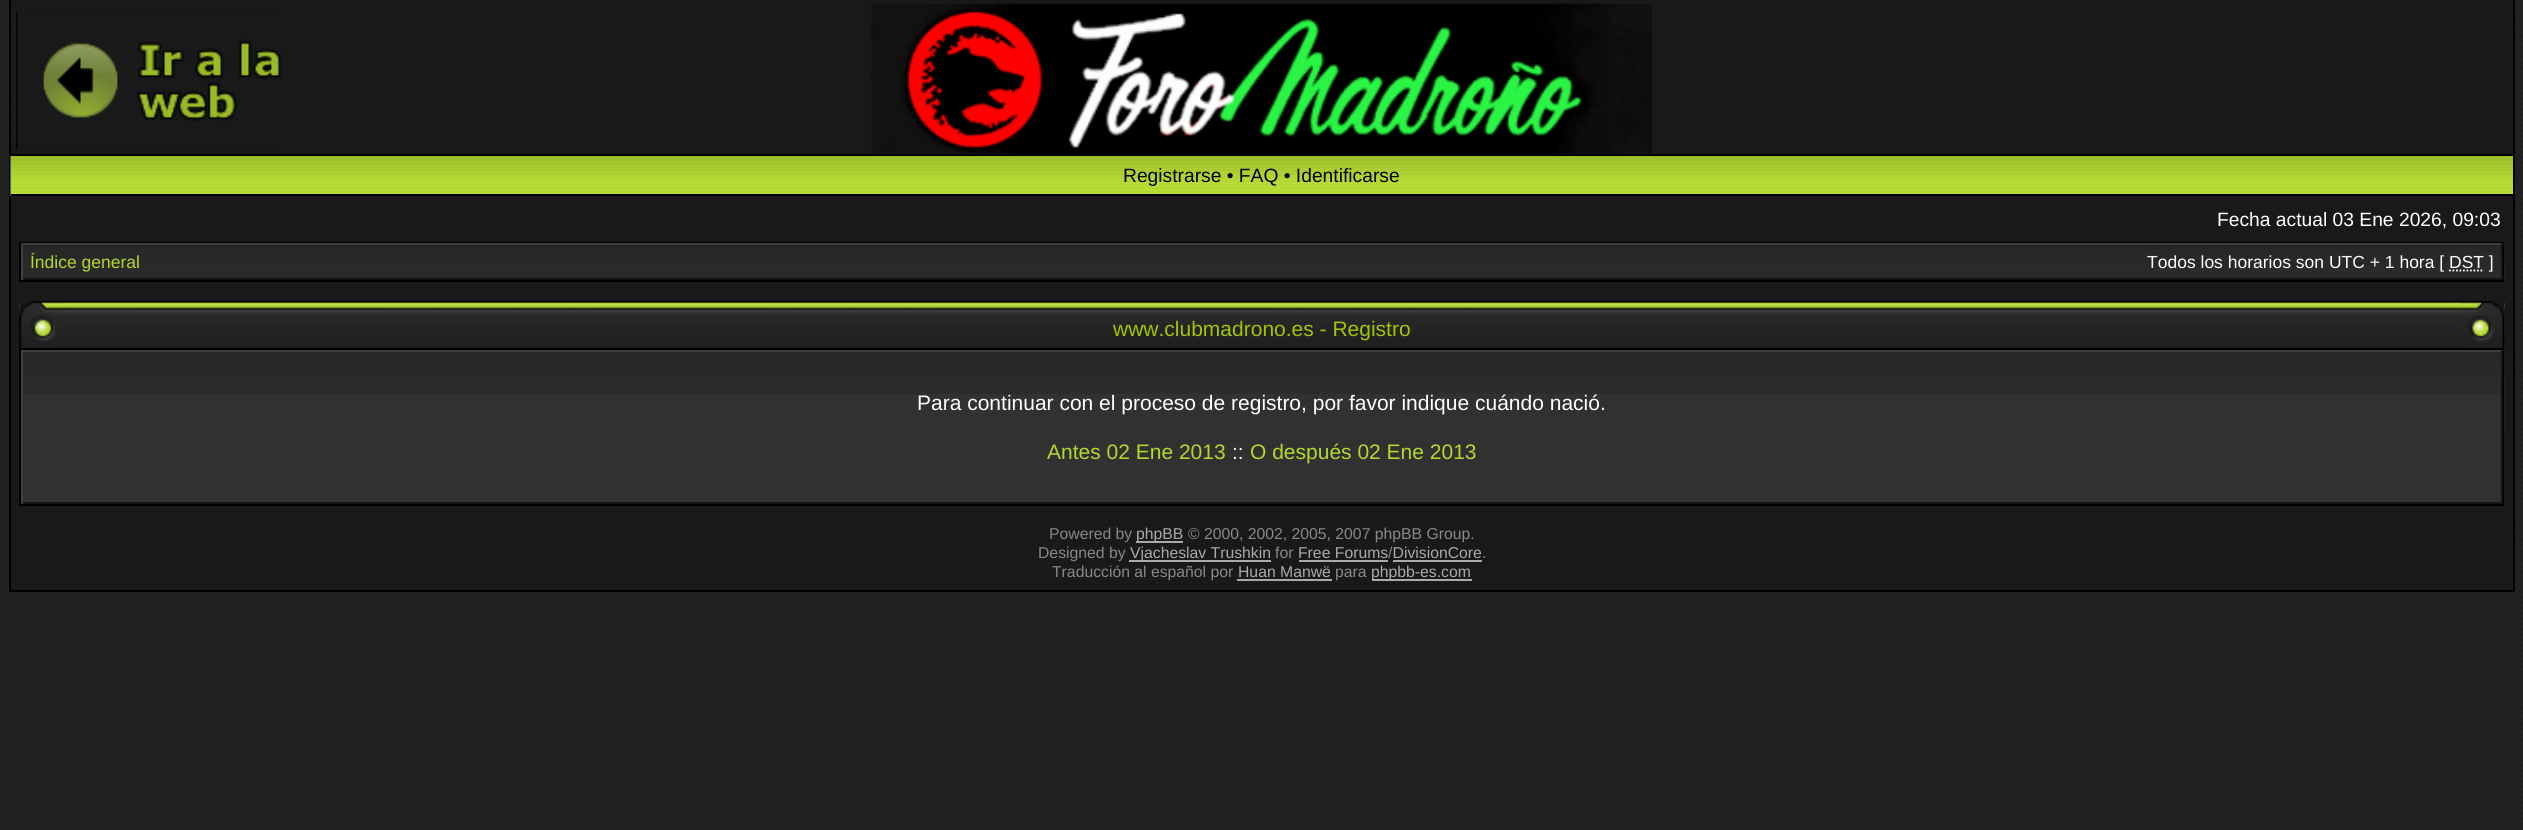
#include <cairo.h>
#include <math.h>
#include <stddef.h>

typedef struct { double x, y, w, h; unsigned color; } box_t;

static void ink(cairo_t *ctx, unsigned color) {
    cairo_set_source_rgb(ctx, (color >> 16) / 255.0, (color >> 8 & 255) / 255.0, (color & 255) / 255.0);
}

static void paste(cairo_t *ctx, const char *path, double x, double y, double w, double h) {
    cairo_surface_t *image = cairo_image_surface_create_from_png(path);
    cairo_save(ctx);
    cairo_set_source_surface(ctx, image, x, y);
    cairo_rectangle(ctx, x, y, w, h);
    cairo_fill(ctx);
    cairo_restore(ctx);
    cairo_surface_destroy(image);
}

int main(void) {
    cairo_surface_t *surface = cairo_image_surface_create(CAIRO_FORMAT_RGB24, 2523, 830);
    cairo_t *ctx = cairo_create(surface);
    cairo_font_options_t *options = cairo_font_options_create();
    cairo_font_options_set_hint_metrics(options, CAIRO_HINT_METRICS_OFF);
    cairo_font_options_set_hint_style(options, CAIRO_HINT_STYLE_NONE);
    cairo_set_font_options(ctx, options);
    cairo_set_miter_limit(ctx, 4);
    ink(ctx, 0xFFFFFF);
    cairo_paint(ctx);
    paste(ctx, "media/1.png", 0, 0, 2523, 830);
    {
        static const box_t items[] = {
            {2513, 0, 2, 592, 0x000000},
            {9, 590, 2506, 2, 0x000000},
            {9, 0, 2, 592, 0x000000},
            {11, 0, 2502, 154, 0x191919},
        };
        for (size_t i = 0; i < sizeof items / sizeof *items; i++) {
            ink(ctx, items[i].color);
            cairo_rectangle(ctx, items[i].x, items[i].y, items[i].w, items[i].h);
            cairo_fill(ctx);
        }
    }
    paste(ctx, "media/2.png", 14, 12, 268, 137);
    paste(ctx, "media/3.png", 871, 3, 781, 151);
    paste(ctx, "media/4.png", 10, 155, 2503, 41);
    ink(ctx, 0x000000);
    cairo_rectangle(ctx, 11, 154, 2502, 2);
    cairo_fill(ctx);
    cairo_rectangle(ctx, 11, 194, 2502, 2);
    cairo_fill(ctx);
    cairo_select_font_face(ctx, "Liberation Sans", CAIRO_FONT_SLANT_NORMAL, CAIRO_FONT_WEIGHT_NORMAL);
    cairo_set_font_size(ctx, 19.25);
    cairo_move_to(ctx, 1123, 182);
    cairo_show_text(ctx, "Registrarse • FAQ • Identificarse");
    ink(ctx, 0x191919);
    cairo_rectangle(ctx, 11, 196, 2502, 394);
    cairo_fill(ctx);
    ink(ctx, 0xFFFFFF);
    cairo_move_to(ctx, 2217, 226);
    cairo_show_text(ctx, "Fecha actual 03 Ene 2026, 09:03");
    paste(ctx, "media/5.png", 2504, 243, 1, 38);
    cairo_rectangle(ctx, 20, 243, 2483, 38);
    ink(ctx, 0x000000);
    cairo_stroke(ctx);
    paste(ctx, "media/6.png", 23, 245, 2478, 33);
    {
        static const box_t items[] = {
            {21, 243, 2482, 2, 0x3C3C3C},
            {2501, 243, 2, 37, 0x121212},
            {21, 278, 2482, 2, 0x131313},
            {21, 243, 2, 37, 0x404040},
        };
        for (size_t i = 0; i < sizeof items / sizeof *items; i++) {
            ink(ctx, items[i].color);
            cairo_rectangle(ctx, items[i].x, items[i].y, items[i].w, items[i].h);
            cairo_fill(ctx);
        }
    }
    cairo_set_font_size(ctx, 17.5);
    ink(ctx, 0xB3D92A);
    cairo_move_to(ctx, 30, 268);
    cairo_show_text(ctx, "Índice general");
    ink(ctx, 0xFFFFFF);
    cairo_move_to(ctx, 2147, 268);
    cairo_show_text(ctx, "Todos los horarios son UTC + 1 hora [ DST ]");
    cairo_new_path(ctx);
    cairo_move_to(ctx, 2449, 270.5);
    cairo_line_to(ctx, 2484, 270.5);
    cairo_set_line_width(ctx, 1.8);
    cairo_set_dash(ctx, (double[]){1.75, 1.75}, 2, 0);
    cairo_stroke(ctx);
    paste(ctx, "media/7.png", 19, 301, 2486, 47);
    paste(ctx, "media/8.png", 19, 301, 44, 47);
    paste(ctx, "media/9.png", 2460, 301, 45, 48);
    cairo_set_font_size(ctx, 21);
    ink(ctx, 0x9FC600);
    cairo_move_to(ctx, 1113, 336);
    cairo_show_text(ctx, "www.clubmadrono.es - Registro");
    paste(ctx, "media/10.png", 2504, 350, 1, 82);
    cairo_rectangle(ctx, 20, 349, 2483, 156);
    ink(ctx, 0x000000);
    cairo_set_line_width(ctx, 2);
    cairo_set_dash(ctx, NULL, 0, 0);
    cairo_stroke(ctx);
    ink(ctx, 0x313131);
    cairo_rectangle(ctx, 23, 394, 2478, 108);
    cairo_fill(ctx);
    paste(ctx, "media/11.png", 23, 352, 2478, 42);
    {
        static const box_t items[] = {
            {21, 350, 2482, 2, 0x3C3C3C},
            {2501, 350, 2, 154, 0x121212},
            {21, 502, 2482, 2, 0x131313},
            {21, 350, 2, 154, 0x404040},
        };
        for (size_t i = 0; i < sizeof items / sizeof *items; i++) {
            ink(ctx, items[i].color);
            cairo_rectangle(ctx, items[i].x, items[i].y, items[i].w, items[i].h);
            cairo_fill(ctx);
        }
    }
    ink(ctx, 0xFFFFFF);
    cairo_move_to(ctx, 917, 410);
    cairo_show_text(ctx, "Para continuar con el proceso de registro, por favor indique cuándo nació.");
    ink(ctx, 0xB3D92A);
    cairo_move_to(ctx, 1047, 459);
    cairo_show_text(ctx, "Antes 02 Ene 2013");
    ink(ctx, 0xFFFFFF);
    cairo_move_to(ctx, 1232, 459);
    cairo_show_text(ctx, "::");
    ink(ctx, 0xB3D92A);
    cairo_move_to(ctx, 1250, 459);
    cairo_show_text(ctx, "O después 02 Ene 2013");
    cairo_set_font_size(ctx, 15.75);
    ink(ctx, 0x888888);
    cairo_move_to(ctx, 1049, 539);
    cairo_show_text(ctx, "Powered by");
    ink(ctx, 0xAAAAAA);
    cairo_rectangle(ctx, 1136, 541, 47, 2);
    cairo_fill(ctx);
    cairo_move_to(ctx, 1136, 539);
    cairo_show_text(ctx, "phpBB");
    ink(ctx, 0x888888);
    cairo_move_to(ctx, 1188, 539);
    cairo_show_text(ctx, "© 2000, 2002, 2005, 2007 phpBB Group.");
    cairo_move_to(ctx, 1038, 558);
    cairo_show_text(ctx, "Designed by");
    ink(ctx, 0xAAAAAA);
    cairo_rectangle(ctx, 1129, 560, 142, 2);
    cairo_fill(ctx);
    cairo_move_to(ctx, 1130, 558);
    cairo_show_text(ctx, "Vjacheslav Trushkin");
    ink(ctx, 0x888888);
    cairo_move_to(ctx, 1275, 558);
    cairo_show_text(ctx, "for");
    ink(ctx, 0xAAAAAA);
    cairo_move_to(ctx, 1298, 558);
    cairo_show_text(ctx, "Free Forums DivisionCore");
    cairo_rectangle(ctx, 1299, 560, 89, 2);
    cairo_fill(ctx);
    ink(ctx, 0x888888);
    cairo_move_to(ctx, 1388, 558);
    cairo_show_text(ctx, "/");
    cairo_move_to(ctx, 1482, 558);
    cairo_show_text(ctx, ".");
    ink(ctx, 0xAAAAAA);
    cairo_rectangle(ctx, 1393, 560, 89, 2);
    cairo_fill(ctx);
    ink(ctx, 0x888888);
    cairo_move_to(ctx, 1052, 577);
    cairo_show_text(ctx, "Traducción al español por");
    ink(ctx, 0xAAAAAA);
    cairo_move_to(ctx, 1238, 577);
    cairo_show_text(ctx, "Huan Manwë");
    ink(ctx, 0x888888);
    cairo_move_to(ctx, 1335, 577);
    cairo_show_text(ctx, "para");
    ink(ctx, 0xAAAAAA);
    cairo_rectangle(ctx, 1237, 579, 95, 2);
    cairo_fill(ctx);
    cairo_rectangle(ctx, 1372, 579, 100, 2);
    cairo_fill(ctx);
    cairo_move_to(ctx, 1371, 577);
    cairo_show_text(ctx, "phpbb-es.com");
    cairo_surface_write_to_png(surface, "image.png");
    cairo_font_options_destroy(options);
    cairo_destroy(ctx);
    cairo_surface_destroy(surface);
    return 0;
}
